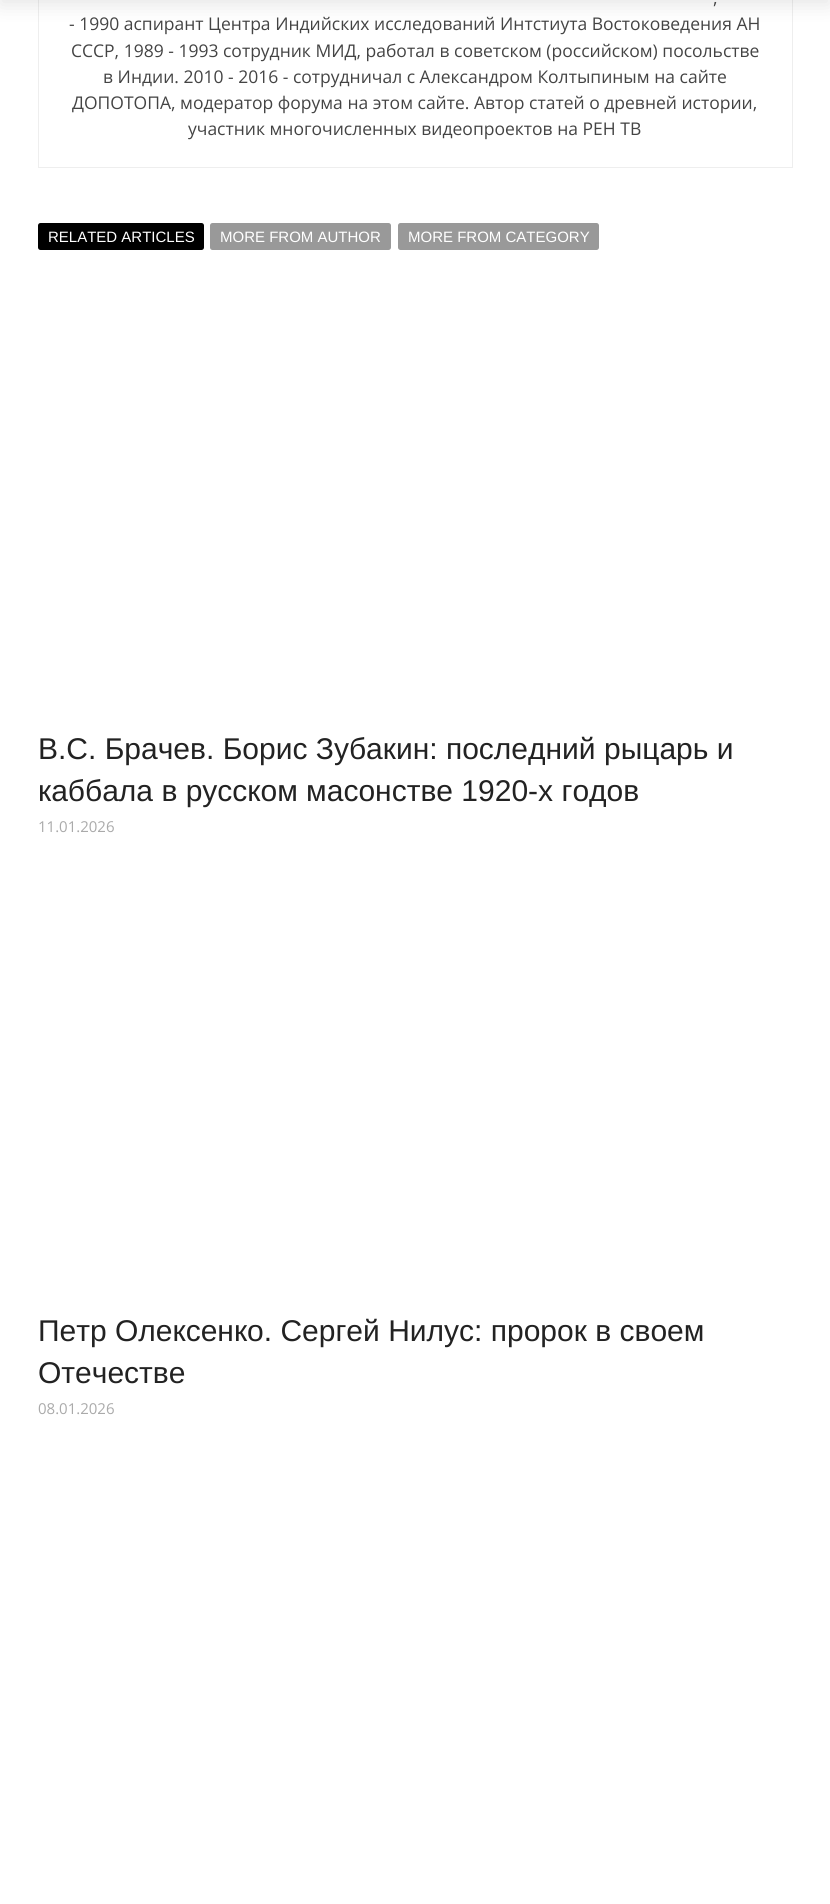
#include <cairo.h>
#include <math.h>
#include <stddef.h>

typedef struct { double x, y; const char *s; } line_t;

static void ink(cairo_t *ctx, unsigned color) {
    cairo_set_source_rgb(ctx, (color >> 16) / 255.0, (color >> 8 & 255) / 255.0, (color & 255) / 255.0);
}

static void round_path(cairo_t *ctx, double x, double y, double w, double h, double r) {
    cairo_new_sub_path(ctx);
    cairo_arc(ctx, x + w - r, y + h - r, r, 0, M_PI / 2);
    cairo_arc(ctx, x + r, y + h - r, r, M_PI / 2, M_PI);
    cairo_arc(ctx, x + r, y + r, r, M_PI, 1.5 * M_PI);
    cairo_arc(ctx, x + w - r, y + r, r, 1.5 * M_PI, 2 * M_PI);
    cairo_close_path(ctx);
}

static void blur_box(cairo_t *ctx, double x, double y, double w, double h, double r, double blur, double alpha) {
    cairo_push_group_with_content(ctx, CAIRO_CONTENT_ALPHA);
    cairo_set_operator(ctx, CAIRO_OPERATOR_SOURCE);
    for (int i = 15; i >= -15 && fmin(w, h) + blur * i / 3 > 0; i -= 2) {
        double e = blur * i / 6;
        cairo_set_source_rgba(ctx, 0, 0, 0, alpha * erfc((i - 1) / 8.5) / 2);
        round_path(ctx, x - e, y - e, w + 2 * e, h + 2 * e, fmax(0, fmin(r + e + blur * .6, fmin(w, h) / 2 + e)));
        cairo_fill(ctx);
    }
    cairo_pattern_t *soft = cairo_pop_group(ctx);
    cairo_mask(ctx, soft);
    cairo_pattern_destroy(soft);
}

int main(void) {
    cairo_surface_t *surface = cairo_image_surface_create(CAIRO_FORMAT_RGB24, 830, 1904);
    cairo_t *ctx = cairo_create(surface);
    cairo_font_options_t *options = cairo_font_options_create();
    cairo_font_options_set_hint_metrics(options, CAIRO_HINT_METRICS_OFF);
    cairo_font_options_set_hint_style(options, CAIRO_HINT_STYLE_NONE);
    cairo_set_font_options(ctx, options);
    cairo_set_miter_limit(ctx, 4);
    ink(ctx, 0xFFFFFF);
    cairo_paint(ctx);
    cairo_rectangle(ctx, 38.5, -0.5, 754, 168);
    ink(ctx, 0xEEEEEE);
    cairo_set_line_width(ctx, 1);
    cairo_stroke(ctx);
    ink(ctx, 0x000000);
    blur_box(ctx, 0, -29, 830, 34, 0, 9.5, 0.1);
    cairo_select_font_face(ctx, "Open Sans", CAIRO_FONT_SLANT_NORMAL, CAIRO_FONT_WEIGHT_NORMAL);
    cairo_set_font_size(ctx, 17.5);
    ink(ctx, 0x444444);
    {
        static const line_t items[] = {
            {713, 4, ","},
            {69, 30, "- 1990 аспирант Центра Индийских исследований Интстиута Востоковедения АН"},
            {71, 57, "СССР, 1989 - 1993 сотрудник МИД, работал в советском (российском) посольстве"},
            {103, 83, "в Индии. 2010 - 2016 - сотрудничал с Александром Колтыпиным на сайте"},
            {72, 109, "ДОПОТОПА, модератор форума на этом сайте. Автор статей о древней истории,"},
            {188, 135, "участник многочисленных видеопроектов на РЕН ТВ"},
        };
        for (size_t i = 0; i < sizeof items / sizeof *items; i++) {
            cairo_move_to(ctx, items[i].x, items[i].y);
            cairo_show_text(ctx, items[i].s);
        }
    }
    ink(ctx, 0x000000);
    round_path(ctx, 38, 223, 166, 27, 2.5);
    cairo_fill(ctx);
    cairo_select_font_face(ctx, "Liberation Sans", CAIRO_FONT_SLANT_NORMAL, CAIRO_FONT_WEIGHT_NORMAL);
    cairo_set_font_size(ctx, 15);
    ink(ctx, 0xFFFFFF);
    cairo_move_to(ctx, 48, 242);
    cairo_show_text(ctx, "RELATED ARTICLES");
    ink(ctx, 0x999999);
    round_path(ctx, 210, 223, 181, 27, 2.5);
    cairo_fill(ctx);
    ink(ctx, 0xFFFFFF);
    cairo_move_to(ctx, 220, 242);
    cairo_show_text(ctx, "MORE FROM AUTHOR");
    ink(ctx, 0x999999);
    round_path(ctx, 398, 223, 201, 27, 2.5);
    cairo_fill(ctx);
    ink(ctx, 0xFFFFFF);
    cairo_move_to(ctx, 408, 242);
    cairo_show_text(ctx, "MORE FROM CATEGORY");
    cairo_set_font_size(ctx, 30);
    ink(ctx, 0x222222);
    cairo_move_to(ctx, 38, 759);
    cairo_show_text(ctx, "В.С. Брачев. Борис Зубакин: последний рыцарь и");
    cairo_move_to(ctx, 38, 801);
    cairo_show_text(ctx, "каббала в русском масонстве 1920-х годов");
    cairo_select_font_face(ctx, "Open Sans", CAIRO_FONT_SLANT_NORMAL, CAIRO_FONT_WEIGHT_NORMAL);
    cairo_set_font_size(ctx, 15);
    ink(ctx, 0xAAAAAA);
    cairo_move_to(ctx, 38, 832);
    cairo_show_text(ctx, "11.01.2026");
    cairo_select_font_face(ctx, "Liberation Sans", CAIRO_FONT_SLANT_NORMAL, CAIRO_FONT_WEIGHT_NORMAL);
    cairo_set_font_size(ctx, 30);
    ink(ctx, 0x222222);
    cairo_move_to(ctx, 38, 1341);
    cairo_show_text(ctx, "Петр Олексенко. Сергей Нилус: пророк в своем");
    cairo_move_to(ctx, 38, 1383);
    cairo_show_text(ctx, "Отечестве");
    cairo_select_font_face(ctx, "Open Sans", CAIRO_FONT_SLANT_NORMAL, CAIRO_FONT_WEIGHT_NORMAL);
    cairo_set_font_size(ctx, 15);
    ink(ctx, 0xAAAAAA);
    cairo_move_to(ctx, 38, 1414);
    cairo_show_text(ctx, "08.01.2026");
    cairo_surface_write_to_png(surface, "image.png");
    cairo_font_options_destroy(options);
    cairo_destroy(ctx);
    cairo_surface_destroy(surface);
    return 0;
}
